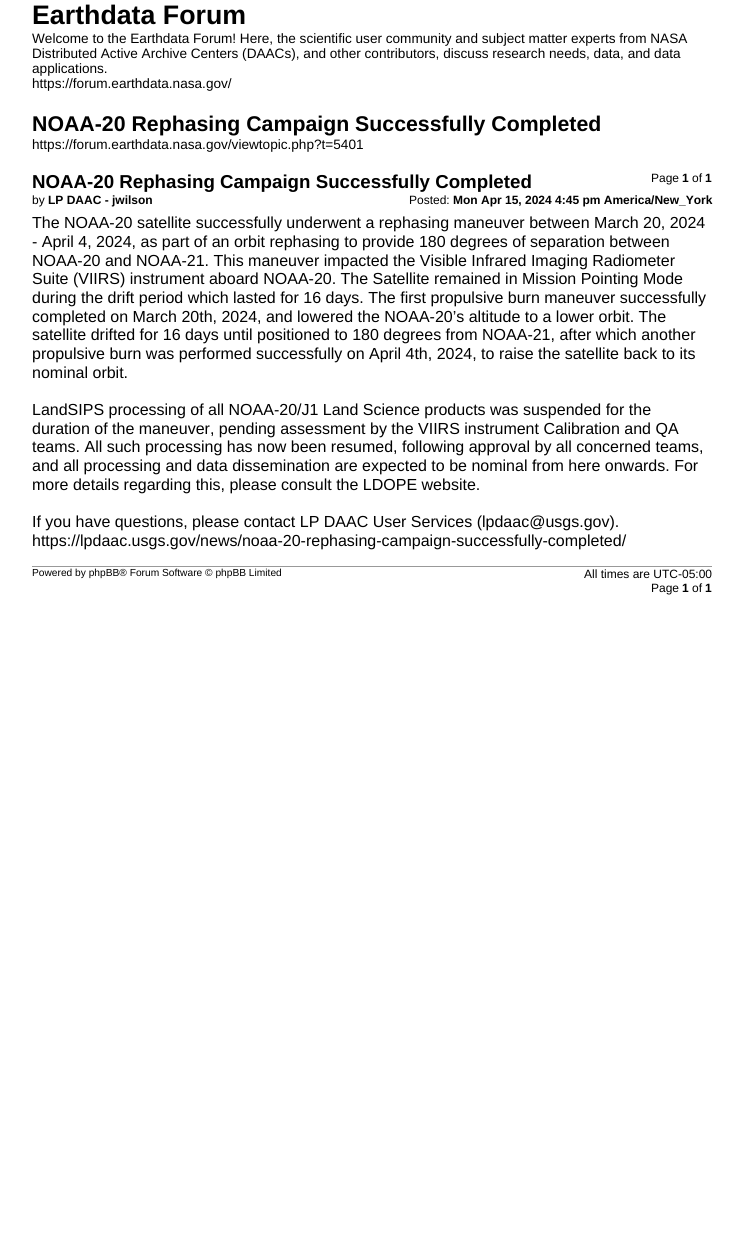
#include <cairo.h>
#include <math.h>
#include <stddef.h>

typedef struct { double x, y; const char *s; } line_t;

static void ink(cairo_t *ctx, unsigned color) {
    cairo_set_source_rgb(ctx, (color >> 16) / 255.0, (color >> 8 & 255) / 255.0, (color & 255) / 255.0);
}

int main(void) {
    cairo_surface_t *surface = cairo_image_surface_create(CAIRO_FORMAT_RGB24, 744, 1237);
    cairo_t *ctx = cairo_create(surface);
    cairo_font_options_t *options = cairo_font_options_create();
    cairo_font_options_set_hint_metrics(options, CAIRO_HINT_METRICS_OFF);
    cairo_font_options_set_hint_style(options, CAIRO_HINT_STYLE_NONE);
    cairo_set_font_options(ctx, options);
    cairo_set_miter_limit(ctx, 4);
    ink(ctx, 0xFFFFFF);
    cairo_paint(ctx);
    cairo_select_font_face(ctx, "Liberation Sans", CAIRO_FONT_SLANT_NORMAL, CAIRO_FONT_WEIGHT_BOLD);
    cairo_set_font_size(ctx, 26.75);
    ink(ctx, 0x000000);
    cairo_move_to(ctx, 32, 24);
    cairo_show_text(ctx, "Earthdata Forum");
    cairo_select_font_face(ctx, "Liberation Sans", CAIRO_FONT_SLANT_NORMAL, CAIRO_FONT_WEIGHT_NORMAL);
    cairo_set_font_size(ctx, 13.6);
    {
        static const line_t items[] = {
            {32, 43, "Welcome to the Earthdata Forum! Here, the scientific user community and subject matter experts from NASA"},
            {32, 58, "Distributed Active Archive Centers (DAACs), and other contributors, discuss research needs, data, and data"},
            {32, 73, "applications."},
            {32, 88, "https://forum.earthdata.nasa.gov/"},
        };
        for (size_t i = 0; i < sizeof items / sizeof *items; i++) {
            cairo_move_to(ctx, items[i].x, items[i].y);
            cairo_show_text(ctx, items[i].s);
        }
    }
    cairo_select_font_face(ctx, "Liberation Sans", CAIRO_FONT_SLANT_NORMAL, CAIRO_FONT_WEIGHT_BOLD);
    cairo_set_font_size(ctx, 21.3);
    cairo_move_to(ctx, 32, 131);
    cairo_show_text(ctx, "NOAA-20 Rephasing Campaign Successfully Completed");
    cairo_select_font_face(ctx, "Liberation Sans", CAIRO_FONT_SLANT_NORMAL, CAIRO_FONT_WEIGHT_NORMAL);
    cairo_set_font_size(ctx, 13.6);
    cairo_move_to(ctx, 32, 149);
    cairo_show_text(ctx, "https://forum.earthdata.nasa.gov/viewtopic.php?t=5401");
    cairo_set_font_size(ctx, 12);
    cairo_move_to(ctx, 651, 182);
    cairo_show_text(ctx, "Page");
    cairo_select_font_face(ctx, "Liberation Sans", CAIRO_FONT_SLANT_NORMAL, CAIRO_FONT_WEIGHT_BOLD);
    cairo_move_to(ctx, 682, 182);
    cairo_show_text(ctx, "1");
    cairo_select_font_face(ctx, "Liberation Sans", CAIRO_FONT_SLANT_NORMAL, CAIRO_FONT_WEIGHT_NORMAL);
    cairo_move_to(ctx, 692, 182);
    cairo_show_text(ctx, "of");
    cairo_select_font_face(ctx, "Liberation Sans", CAIRO_FONT_SLANT_NORMAL, CAIRO_FONT_WEIGHT_BOLD);
    cairo_move_to(ctx, 705, 182);
    cairo_show_text(ctx, "1");
    cairo_set_font_size(ctx, 18.7);
    cairo_move_to(ctx, 32, 188);
    cairo_show_text(ctx, "NOAA-20 Rephasing Campaign Successfully Completed");
    cairo_select_font_face(ctx, "Liberation Sans", CAIRO_FONT_SLANT_NORMAL, CAIRO_FONT_WEIGHT_NORMAL);
    cairo_set_font_size(ctx, 12);
    cairo_move_to(ctx, 32, 204);
    cairo_show_text(ctx, "by");
    cairo_select_font_face(ctx, "Liberation Sans", CAIRO_FONT_SLANT_NORMAL, CAIRO_FONT_WEIGHT_BOLD);
    cairo_move_to(ctx, 48, 204);
    cairo_show_text(ctx, "LP DAAC - jwilson");
    cairo_select_font_face(ctx, "Liberation Sans", CAIRO_FONT_SLANT_NORMAL, CAIRO_FONT_WEIGHT_NORMAL);
    cairo_move_to(ctx, 409, 204);
    cairo_show_text(ctx, "Posted:");
    cairo_select_font_face(ctx, "Liberation Sans", CAIRO_FONT_SLANT_NORMAL, CAIRO_FONT_WEIGHT_BOLD);
    cairo_move_to(ctx, 453, 204);
    cairo_show_text(ctx, "Mon Apr 15, 2024 4:45 pm America/New_York");
    cairo_select_font_face(ctx, "Liberation Sans", CAIRO_FONT_SLANT_NORMAL, CAIRO_FONT_WEIGHT_NORMAL);
    cairo_set_font_size(ctx, 16);
    {
        static const line_t items[] = {
            {32, 228, "The NOAA-20 satellite successfully underwent a rephasing maneuver between March 20, 2024"},
            {32, 247, "- April 4, 2024, as part of an orbit rephasing to provide 180 degrees of separation between"},
            {32, 266, "NOAA-20 and NOAA-21. This maneuver impacted the Visible Infrared Imaging Radiometer"},
            {32, 284, "Suite (VIIRS) instrument aboard NOAA-20. The Satellite remained in Mission Pointing Mode"},
            {32, 303, "during the drift period which lasted for 16 days. The first propulsive burn maneuver successfully"},
            {32, 322, "completed on March 20th, 2024, and lowered the NOAA-20’s altitude to a lower orbit. The"},
            {32, 340, "satellite drifted for 16 days until positioned to 180 degrees from NOAA-21, after which another"},
            {32, 359, "propulsive burn was performed successfully on April 4th, 2024, to raise the satellite back to its"},
            {32, 378, "nominal orbit."},
            {32, 415, "LandSIPS processing of all NOAA-20/J1 Land Science products was suspended for the"},
            {32, 434, "duration of the maneuver, pending assessment by the VIIRS instrument Calibration and QA"},
            {32, 452, "teams. All such processing has now been resumed, following approval by all concerned teams,"},
            {32, 471, "and all processing and data dissemination are expected to be nominal from here onwards. For"},
            {32, 490, "more details regarding this, please consult the LDOPE website."},
            {32, 527, "If you have questions, please contact LP DAAC User Services (lpdaac@usgs.gov)."},
            {32, 546, "https://lpdaac.usgs.gov/news/noaa-20-rephasing-campaign-successfully-completed/"},
        };
        for (size_t i = 0; i < sizeof items / sizeof *items; i++) {
            cairo_move_to(ctx, items[i].x, items[i].y);
            cairo_show_text(ctx, items[i].s);
        }
    }
    ink(ctx, 0x999999);
    cairo_rectangle(ctx, 32, 566, 680, 1);
    cairo_fill(ctx);
    cairo_set_font_size(ctx, 10.2);
    ink(ctx, 0x000000);
    cairo_move_to(ctx, 32, 576);
    cairo_show_text(ctx, "Powered by phpBB® Forum Software © phpBB Limited");
    cairo_set_font_size(ctx, 12);
    cairo_move_to(ctx, 584, 578);
    cairo_show_text(ctx, "All times are UTC-05:00");
    cairo_move_to(ctx, 651, 592);
    cairo_show_text(ctx, "Page");
    cairo_select_font_face(ctx, "Liberation Sans", CAIRO_FONT_SLANT_NORMAL, CAIRO_FONT_WEIGHT_BOLD);
    cairo_move_to(ctx, 682, 592);
    cairo_show_text(ctx, "1");
    cairo_select_font_face(ctx, "Liberation Sans", CAIRO_FONT_SLANT_NORMAL, CAIRO_FONT_WEIGHT_NORMAL);
    cairo_move_to(ctx, 692, 592);
    cairo_show_text(ctx, "of");
    cairo_select_font_face(ctx, "Liberation Sans", CAIRO_FONT_SLANT_NORMAL, CAIRO_FONT_WEIGHT_BOLD);
    cairo_move_to(ctx, 705, 592);
    cairo_show_text(ctx, "1");
    cairo_surface_write_to_png(surface, "image.png");
    cairo_font_options_destroy(options);
    cairo_destroy(ctx);
    cairo_surface_destroy(surface);
    return 0;
}
